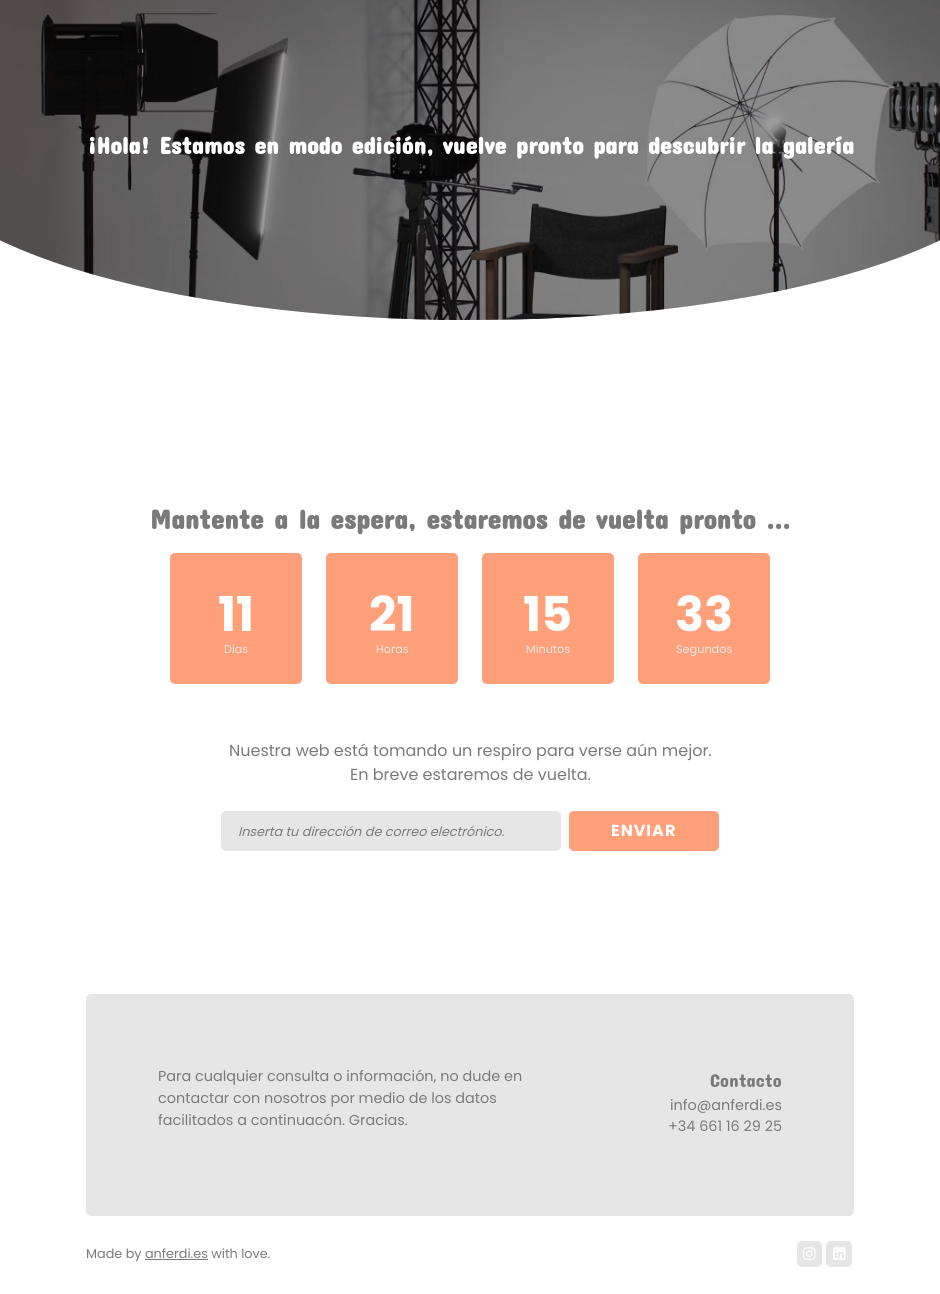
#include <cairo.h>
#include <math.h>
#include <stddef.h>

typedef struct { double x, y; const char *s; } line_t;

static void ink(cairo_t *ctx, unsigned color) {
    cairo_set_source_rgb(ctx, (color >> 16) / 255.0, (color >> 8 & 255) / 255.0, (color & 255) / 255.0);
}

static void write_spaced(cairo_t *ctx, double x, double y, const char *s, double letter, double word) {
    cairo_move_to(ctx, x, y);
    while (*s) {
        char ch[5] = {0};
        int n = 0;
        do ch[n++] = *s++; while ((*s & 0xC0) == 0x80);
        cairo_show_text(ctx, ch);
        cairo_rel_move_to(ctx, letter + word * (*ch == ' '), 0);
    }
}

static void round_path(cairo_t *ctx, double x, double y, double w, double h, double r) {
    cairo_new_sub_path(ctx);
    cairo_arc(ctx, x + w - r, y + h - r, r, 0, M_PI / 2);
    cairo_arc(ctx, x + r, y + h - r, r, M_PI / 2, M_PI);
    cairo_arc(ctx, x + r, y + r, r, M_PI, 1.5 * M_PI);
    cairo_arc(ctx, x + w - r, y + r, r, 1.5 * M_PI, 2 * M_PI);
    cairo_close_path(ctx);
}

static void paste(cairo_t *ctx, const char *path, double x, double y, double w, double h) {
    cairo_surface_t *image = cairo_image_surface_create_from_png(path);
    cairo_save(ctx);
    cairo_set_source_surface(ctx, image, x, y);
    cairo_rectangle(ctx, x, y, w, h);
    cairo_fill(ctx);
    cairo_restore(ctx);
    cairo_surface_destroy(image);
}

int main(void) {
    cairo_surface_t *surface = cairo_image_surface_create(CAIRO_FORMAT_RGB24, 940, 1294);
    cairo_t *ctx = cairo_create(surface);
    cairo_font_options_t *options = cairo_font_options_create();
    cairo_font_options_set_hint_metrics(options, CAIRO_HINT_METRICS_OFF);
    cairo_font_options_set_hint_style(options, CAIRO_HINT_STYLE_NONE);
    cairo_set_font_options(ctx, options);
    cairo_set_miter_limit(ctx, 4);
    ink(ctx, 0xFFFFFF);
    cairo_paint(ctx);
    paste(ctx, "media/1.png", 0, 0, 940, 320);
    cairo_set_source_rgba(ctx, 0.039, 0.039, 0.039, 0.4);
    cairo_new_path(ctx);
    cairo_move_to(ctx, -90, -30);
    cairo_line_to(ctx, -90, 145);
    cairo_curve_to(ctx, -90, 242, 161, 320, 470, 320);
    cairo_curve_to(ctx, 779, 320, 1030, 242, 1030, 145);
    cairo_line_to(ctx, 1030, -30);
    cairo_close_path(ctx);
    cairo_fill(ctx);
    cairo_select_font_face(ctx, "Concert One", CAIRO_FONT_SLANT_NORMAL, CAIRO_FONT_WEIGHT_BOLD);
    cairo_set_font_size(ctx, 24);
    ink(ctx, 0xFFFFFF);
    cairo_move_to(ctx, 87, 154);
    cairo_show_text(ctx, "¡Hola! Estamos en modo edición, vuelve pronto para descubrir la galería");
    cairo_set_font_size(ctx, 27.2);
    ink(ctx, 0x7A7A7A);
    cairo_move_to(ctx, 150, 529);
    cairo_show_text(ctx, "Mantente a la espera, estaremos de vuelta pronto ...");
    ink(ctx, 0xFFA07A);
    round_path(ctx, 170, 553, 132, 131, 5);
    cairo_fill(ctx);
    cairo_select_font_face(ctx, "Poppins", CAIRO_FONT_SLANT_NORMAL, CAIRO_FONT_WEIGHT_BOLD);
    cairo_set_font_size(ctx, 48);
    ink(ctx, 0xFFFFFF);
    cairo_move_to(ctx, 218, 631);
    cairo_show_text(ctx, "11");
    cairo_select_font_face(ctx, "Poppins", CAIRO_FONT_SLANT_NORMAL, CAIRO_FONT_WEIGHT_NORMAL);
    cairo_set_font_size(ctx, 11.25);
    ink(ctx, 0xE6E6E6);
    cairo_move_to(ctx, 224, 653);
    cairo_show_text(ctx, "Días");
    ink(ctx, 0xFFA07A);
    round_path(ctx, 326, 553, 132, 131, 5);
    cairo_fill(ctx);
    cairo_select_font_face(ctx, "Poppins", CAIRO_FONT_SLANT_NORMAL, CAIRO_FONT_WEIGHT_BOLD);
    cairo_set_font_size(ctx, 48);
    ink(ctx, 0xFFFFFF);
    cairo_move_to(ctx, 369, 631);
    cairo_show_text(ctx, "21");
    cairo_select_font_face(ctx, "Poppins", CAIRO_FONT_SLANT_NORMAL, CAIRO_FONT_WEIGHT_NORMAL);
    cairo_set_font_size(ctx, 11.25);
    ink(ctx, 0xE6E6E6);
    cairo_move_to(ctx, 376, 653);
    cairo_show_text(ctx, "Horas");
    ink(ctx, 0xFFA07A);
    round_path(ctx, 482, 553, 132, 131, 5);
    cairo_fill(ctx);
    cairo_select_font_face(ctx, "Poppins", CAIRO_FONT_SLANT_NORMAL, CAIRO_FONT_WEIGHT_BOLD);
    cairo_set_font_size(ctx, 48);
    ink(ctx, 0xFFFFFF);
    cairo_move_to(ctx, 523, 631);
    cairo_show_text(ctx, "15");
    cairo_select_font_face(ctx, "Poppins", CAIRO_FONT_SLANT_NORMAL, CAIRO_FONT_WEIGHT_NORMAL);
    cairo_set_font_size(ctx, 11.25);
    ink(ctx, 0xE6E6E6);
    cairo_move_to(ctx, 526, 653);
    cairo_show_text(ctx, "Minutos");
    ink(ctx, 0xFFA07A);
    round_path(ctx, 638, 553, 132, 131, 5);
    cairo_fill(ctx);
    cairo_select_font_face(ctx, "Poppins", CAIRO_FONT_SLANT_NORMAL, CAIRO_FONT_WEIGHT_BOLD);
    cairo_set_font_size(ctx, 48);
    ink(ctx, 0xFFFFFF);
    cairo_move_to(ctx, 675, 631);
    cairo_show_text(ctx, "33");
    cairo_select_font_face(ctx, "Poppins", CAIRO_FONT_SLANT_NORMAL, CAIRO_FONT_WEIGHT_NORMAL);
    cairo_set_font_size(ctx, 11.25);
    ink(ctx, 0xE6E6E6);
    cairo_move_to(ctx, 676, 653);
    cairo_show_text(ctx, "Segundos");
    cairo_set_font_size(ctx, 16);
    ink(ctx, 0x7A7A7A);
    cairo_move_to(ctx, 229, 756);
    cairo_show_text(ctx, "Nuestra web está tomando un respiro para verse aún mejor.");
    cairo_move_to(ctx, 350, 780);
    cairo_show_text(ctx, "En breve estaremos de vuelta.");
    ink(ctx, 0xE6E6E6);
    round_path(ctx, 221, 811, 340, 40, 5);
    cairo_fill(ctx);
    cairo_select_font_face(ctx, "Poppins", CAIRO_FONT_SLANT_ITALIC, CAIRO_FONT_WEIGHT_NORMAL);
    cairo_set_font_size(ctx, 12.8);
    ink(ctx, 0x7A7A7A);
    cairo_move_to(ctx, 238, 836);
    cairo_show_text(ctx, "Inserta tu dirección de correo electrónico.");
    ink(ctx, 0xFFA07A);
    round_path(ctx, 569, 811, 150, 40, 5);
    cairo_fill(ctx);
    cairo_select_font_face(ctx, "Poppins", CAIRO_FONT_SLANT_NORMAL, CAIRO_FONT_WEIGHT_BOLD);
    cairo_set_font_size(ctx, 16);
    ink(ctx, 0xFFFFFF);
    write_spaced(ctx, 611, 836, "ENVIAR", 1, 0);
    ink(ctx, 0xE6E6E6);
    round_path(ctx, 86, 994, 768, 222, 5);
    cairo_fill(ctx);
    cairo_select_font_face(ctx, "Poppins", CAIRO_FONT_SLANT_NORMAL, CAIRO_FONT_WEIGHT_NORMAL);
    cairo_set_font_size(ctx, 14.4);
    ink(ctx, 0x7A7A7A);
    {
        static const line_t items[] = {
            {158, 1081, "Para cualquier consulta o información, no dude en"},
            {158, 1103, "contactar con nosotros por medio de los datos"},
            {158, 1125, "facilitados a continuacón. Gracias."},
        };
        for (size_t i = 0; i < sizeof items / sizeof *items; i++) {
            cairo_move_to(ctx, items[i].x, items[i].y);
            cairo_show_text(ctx, items[i].s);
        }
    }
    cairo_select_font_face(ctx, "Concert One", CAIRO_FONT_SLANT_NORMAL, CAIRO_FONT_WEIGHT_NORMAL);
    cairo_set_font_size(ctx, 18.5);
    cairo_move_to(ctx, 710, 1087);
    cairo_show_text(ctx, "Contacto");
    cairo_select_font_face(ctx, "Poppins", CAIRO_FONT_SLANT_NORMAL, CAIRO_FONT_WEIGHT_NORMAL);
    cairo_set_font_size(ctx, 14.4);
    cairo_move_to(ctx, 670, 1110);
    cairo_show_text(ctx, "info@anferdi.es");
    cairo_move_to(ctx, 668, 1131);
    cairo_show_text(ctx, "+34 661 16 29 25");
    cairo_set_font_size(ctx, 12.8);
    cairo_move_to(ctx, 86, 1258);
    cairo_show_text(ctx, "Made by anferdi.es with love.");
    cairo_rectangle(ctx, 145, 1259, 63, 1);
    cairo_fill(ctx);
    ink(ctx, 0xE6E6E6);
    round_path(ctx, 797, 1241, 25, 26, 5);
    cairo_fill(ctx);
    paste(ctx, "media/2.png", 803, 1247, 13, 13);
    round_path(ctx, 826, 1241, 26, 26, 5);
    cairo_fill(ctx);
    paste(ctx, "media/3.png", 833, 1247, 13, 13);
    cairo_surface_write_to_png(surface, "image.png");
    cairo_font_options_destroy(options);
    cairo_destroy(ctx);
    cairo_surface_destroy(surface);
    return 0;
}
